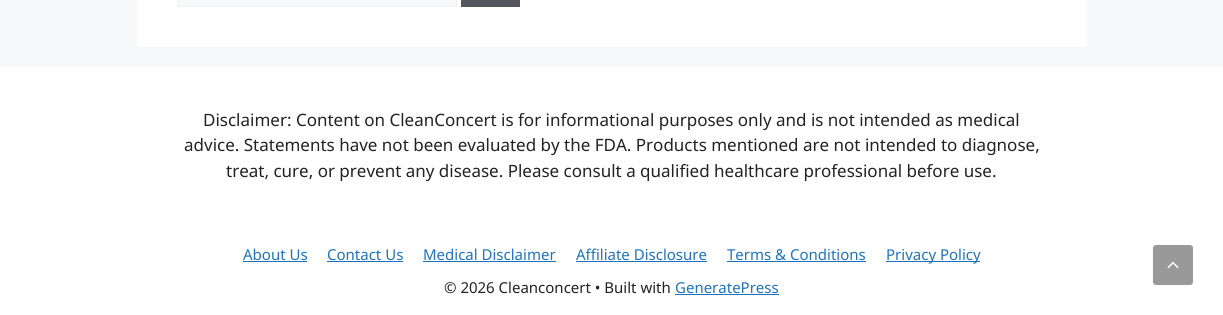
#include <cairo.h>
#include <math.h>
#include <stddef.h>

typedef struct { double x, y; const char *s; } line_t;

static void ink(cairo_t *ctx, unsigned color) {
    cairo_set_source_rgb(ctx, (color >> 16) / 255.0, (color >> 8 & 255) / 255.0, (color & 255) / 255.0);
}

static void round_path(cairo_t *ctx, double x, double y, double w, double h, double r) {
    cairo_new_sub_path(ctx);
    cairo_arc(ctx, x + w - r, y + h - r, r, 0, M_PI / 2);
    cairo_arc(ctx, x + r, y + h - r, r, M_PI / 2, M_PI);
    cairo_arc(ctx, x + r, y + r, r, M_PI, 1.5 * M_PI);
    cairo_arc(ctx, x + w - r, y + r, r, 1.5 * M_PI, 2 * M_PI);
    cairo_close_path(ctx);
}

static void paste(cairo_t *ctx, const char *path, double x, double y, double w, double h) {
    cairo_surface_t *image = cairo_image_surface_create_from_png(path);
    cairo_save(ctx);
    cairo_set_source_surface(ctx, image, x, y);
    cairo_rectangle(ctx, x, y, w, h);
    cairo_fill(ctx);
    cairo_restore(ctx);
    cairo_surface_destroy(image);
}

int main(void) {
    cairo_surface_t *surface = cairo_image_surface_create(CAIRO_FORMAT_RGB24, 1223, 315);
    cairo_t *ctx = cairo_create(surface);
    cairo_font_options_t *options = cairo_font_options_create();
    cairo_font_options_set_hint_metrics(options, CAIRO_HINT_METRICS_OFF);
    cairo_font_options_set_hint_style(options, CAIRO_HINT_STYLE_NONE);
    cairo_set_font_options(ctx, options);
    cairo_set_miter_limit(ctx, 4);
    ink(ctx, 0xF7F8F9);
    cairo_paint(ctx);
    ink(ctx, 0xFFFFFF);
    cairo_rectangle(ctx, 137, 0, 950, 47);
    cairo_fill(ctx);
    ink(ctx, 0xF7F8F9);
    cairo_rectangle(ctx, 177.5, -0.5, 279, 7);
    cairo_fill_preserve(ctx);
    ink(ctx, 0xF0F0F0);
    cairo_set_line_width(ctx, 1);
    cairo_stroke(ctx);
    ink(ctx, 0x55555E);
    cairo_rectangle(ctx, 461, 0, 59, 7);
    cairo_fill(ctx);
    ink(ctx, 0xFFFFFF);
    cairo_rectangle(ctx, 0, 67, 1223, 248);
    cairo_fill(ctx);
    cairo_select_font_face(ctx, "Noto Sans", CAIRO_FONT_SLANT_NORMAL, CAIRO_FONT_WEIGHT_NORMAL);
    cairo_set_font_size(ctx, 17);
    ink(ctx, 0x222222);
    {
        static const line_t items[] = {
            {203, 126, "Disclaimer: Content on CleanConcert is for informational purposes only and is not intended as medical"},
            {184, 151, "advice. Statements have not been evaluated by the FDA. Products mentioned are not intended to diagnose,"},
            {226, 177, "treat, cure, or prevent any disease. Please consult a qualified healthcare professional before use."},
        };
        for (size_t i = 0; i < sizeof items / sizeof *items; i++) {
            cairo_move_to(ctx, items[i].x, items[i].y);
            cairo_show_text(ctx, items[i].s);
        }
    }
    cairo_set_font_size(ctx, 15);
    ink(ctx, 0x1E73BE);
    cairo_move_to(ctx, 243, 260);
    cairo_show_text(ctx, "About Us");
    cairo_rectangle(ctx, 243, 261, 64, 1);
    cairo_fill(ctx);
    cairo_move_to(ctx, 327, 260);
    cairo_show_text(ctx, "Contact Us");
    cairo_rectangle(ctx, 327, 261, 76, 1);
    cairo_fill(ctx);
    cairo_move_to(ctx, 423, 260);
    cairo_show_text(ctx, "Medical Disclaimer");
    cairo_rectangle(ctx, 423, 261, 133, 1);
    cairo_fill(ctx);
    cairo_move_to(ctx, 576, 260);
    cairo_show_text(ctx, "Affiliate Disclosure");
    cairo_rectangle(ctx, 576, 261, 131, 1);
    cairo_fill(ctx);
    cairo_move_to(ctx, 727, 260);
    cairo_show_text(ctx, "Terms & Conditions");
    cairo_rectangle(ctx, 727, 261, 139, 1);
    cairo_fill(ctx);
    cairo_rectangle(ctx, 886, 261, 94, 1);
    cairo_fill(ctx);
    cairo_move_to(ctx, 886, 260);
    cairo_show_text(ctx, "Privacy Policy");
    ink(ctx, 0x222222);
    cairo_move_to(ctx, 444, 293);
    cairo_show_text(ctx, "© 2026 Cleanconcert • Built with");
    ink(ctx, 0x1E73BE);
    cairo_move_to(ctx, 675, 293);
    cairo_show_text(ctx, "GeneratePress");
    cairo_rectangle(ctx, 675, 294, 104, 1);
    cairo_fill(ctx);
    ink(ctx, 0x999999);
    round_path(ctx, 1153, 245, 40, 40, 3);
    cairo_fill(ctx);
    paste(ctx, "media/1.png", 1167, 261, 12, 8);
    cairo_surface_write_to_png(surface, "image.png");
    cairo_font_options_destroy(options);
    cairo_destroy(ctx);
    cairo_surface_destroy(surface);
    return 0;
}
